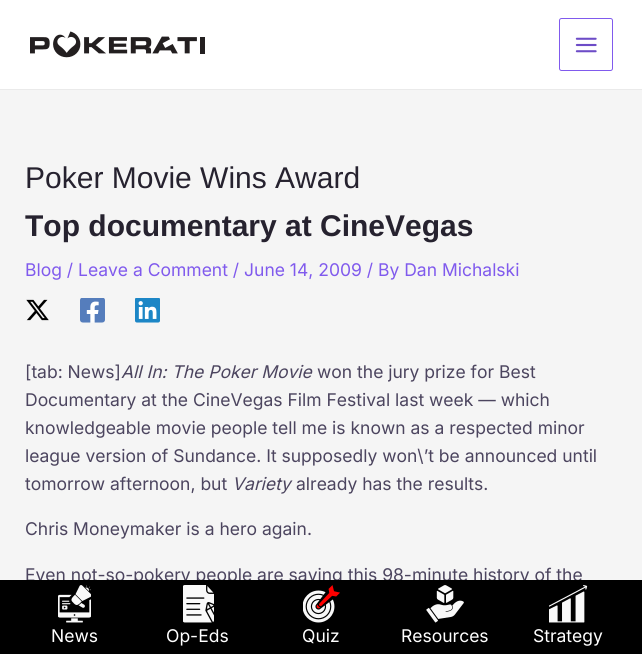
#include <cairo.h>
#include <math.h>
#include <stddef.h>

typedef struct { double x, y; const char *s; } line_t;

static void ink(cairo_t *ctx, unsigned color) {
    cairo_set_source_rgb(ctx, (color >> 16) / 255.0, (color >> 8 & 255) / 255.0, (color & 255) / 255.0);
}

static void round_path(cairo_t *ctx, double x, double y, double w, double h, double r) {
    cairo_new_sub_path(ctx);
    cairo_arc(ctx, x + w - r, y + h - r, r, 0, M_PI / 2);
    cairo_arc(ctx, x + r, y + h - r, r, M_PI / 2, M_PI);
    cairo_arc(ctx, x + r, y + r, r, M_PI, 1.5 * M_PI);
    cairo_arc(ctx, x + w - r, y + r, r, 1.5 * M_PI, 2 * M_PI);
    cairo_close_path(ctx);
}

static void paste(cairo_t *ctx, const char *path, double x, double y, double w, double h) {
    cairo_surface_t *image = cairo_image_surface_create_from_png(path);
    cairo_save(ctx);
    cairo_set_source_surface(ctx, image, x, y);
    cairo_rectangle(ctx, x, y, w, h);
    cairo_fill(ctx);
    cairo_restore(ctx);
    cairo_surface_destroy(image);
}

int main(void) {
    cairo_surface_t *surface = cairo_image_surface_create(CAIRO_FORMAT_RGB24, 642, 654);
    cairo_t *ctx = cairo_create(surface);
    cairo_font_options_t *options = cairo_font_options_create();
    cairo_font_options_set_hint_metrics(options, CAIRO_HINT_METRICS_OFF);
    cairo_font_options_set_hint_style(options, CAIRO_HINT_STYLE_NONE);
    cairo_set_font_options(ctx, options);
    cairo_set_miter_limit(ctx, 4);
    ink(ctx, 0xF5F5F5);
    cairo_paint(ctx);
    ink(ctx, 0xFFFFFF);
    cairo_rectangle(ctx, 0, 0, 642, 89);
    cairo_fill(ctx);
    ink(ctx, 0xEAEAEA);
    cairo_rectangle(ctx, 0, 89, 642, 1);
    cairo_fill(ctx);
    paste(ctx, "media/1.png", 30, 31, 175, 27);
    round_path(ctx, 559.5, 18.5, 53, 52, 2);
    ink(ctx, 0x805AED);
    cairo_set_line_width(ctx, 1);
    cairo_stroke(ctx);
    paste(ctx, "media/2.png", 575, 37, 22, 16);
    cairo_select_font_face(ctx, "Liberation Sans", CAIRO_FONT_SLANT_NORMAL, CAIRO_FONT_WEIGHT_NORMAL);
    cairo_set_font_size(ctx, 30);
    ink(ctx, 0x26222F);
    cairo_move_to(ctx, 25, 188);
    cairo_show_text(ctx, "Poker Movie Wins Award");
    cairo_select_font_face(ctx, "Liberation Sans", CAIRO_FONT_SLANT_NORMAL, CAIRO_FONT_WEIGHT_BOLD);
    cairo_move_to(ctx, 25, 236);
    cairo_show_text(ctx, "Top documentary at CineVegas");
    cairo_select_font_face(ctx, "Inter", CAIRO_FONT_SLANT_NORMAL, CAIRO_FONT_WEIGHT_NORMAL);
    cairo_set_font_size(ctx, 17.5);
    ink(ctx, 0x805AED);
    cairo_move_to(ctx, 25, 276);
    cairo_show_text(ctx, "Blog / Leave a Comment / June 14, 2009 / By Dan Michalski");
    paste(ctx, "media/3.png", 26, 299, 23, 22);
    paste(ctx, "media/4.png", 80, 298, 25, 25);
    paste(ctx, "media/5.png", 135, 298, 25, 25);
    ink(ctx, 0x4C455F);
    cairo_move_to(ctx, 25, 378);
    cairo_show_text(ctx, "[tab: News]");
    cairo_select_font_face(ctx, "Inter", CAIRO_FONT_SLANT_ITALIC, CAIRO_FONT_WEIGHT_NORMAL);
    cairo_move_to(ctx, 121, 378);
    cairo_show_text(ctx, "All In: The Poker Movie");
    cairo_select_font_face(ctx, "Inter", CAIRO_FONT_SLANT_NORMAL, CAIRO_FONT_WEIGHT_NORMAL);
    {
        static const line_t items[] = {
            {317, 378, "won the jury prize for Best"},
            {25, 406, "Documentary at the CineVegas Film Festival last week — which"},
            {25, 434, "knowledgeable movie people tell me is known as a respected minor"},
            {25, 462, "league version of Sundance. It supposedly won\\’t be announced until"},
            {25, 490, "tomorrow afternoon, but"},
        };
        for (size_t i = 0; i < sizeof items / sizeof *items; i++) {
            cairo_move_to(ctx, items[i].x, items[i].y);
            cairo_show_text(ctx, items[i].s);
        }
    }
    cairo_select_font_face(ctx, "Inter", CAIRO_FONT_SLANT_ITALIC, CAIRO_FONT_WEIGHT_NORMAL);
    cairo_move_to(ctx, 232, 490);
    cairo_show_text(ctx, "Variety");
    cairo_select_font_face(ctx, "Inter", CAIRO_FONT_SLANT_NORMAL, CAIRO_FONT_WEIGHT_NORMAL);
    {
        static const line_t items[] = {
            {296, 490, "already has the results."},
            {25, 535, "Chris Moneymaker is a hero again."},
            {25, 581, "Even not-so-pokery people are saying this 98-minute history of the"},
        };
        for (size_t i = 0; i < sizeof items / sizeof *items; i++) {
            cairo_move_to(ctx, items[i].x, items[i].y);
            cairo_show_text(ctx, items[i].s);
        }
    }
    ink(ctx, 0x000000);
    cairo_rectangle(ctx, 0, 580, 642, 74);
    cairo_fill(ctx);
    paste(ctx, "media/6.png", 58, 585, 33, 38);
    ink(ctx, 0xFFFFFF);
    cairo_move_to(ctx, 51, 642);
    cairo_show_text(ctx, "News");
    paste(ctx, "media/7.png", 183, 585, 31, 38);
    cairo_move_to(ctx, 166, 642);
    cairo_show_text(ctx, "Op-Eds");
    paste(ctx, "media/8.png", 303, 585, 37, 38);
    cairo_move_to(ctx, 302, 642);
    cairo_show_text(ctx, "Quiz");
    paste(ctx, "media/9.png", 426, 585, 38, 38);
    cairo_move_to(ctx, 401, 642);
    cairo_show_text(ctx, "Resources");
    paste(ctx, "media/10.png", 549, 585, 39, 38);
    cairo_move_to(ctx, 533, 642);
    cairo_show_text(ctx, "Strategy");
    cairo_surface_write_to_png(surface, "image.png");
    cairo_font_options_destroy(options);
    cairo_destroy(ctx);
    cairo_surface_destroy(surface);
    return 0;
}
